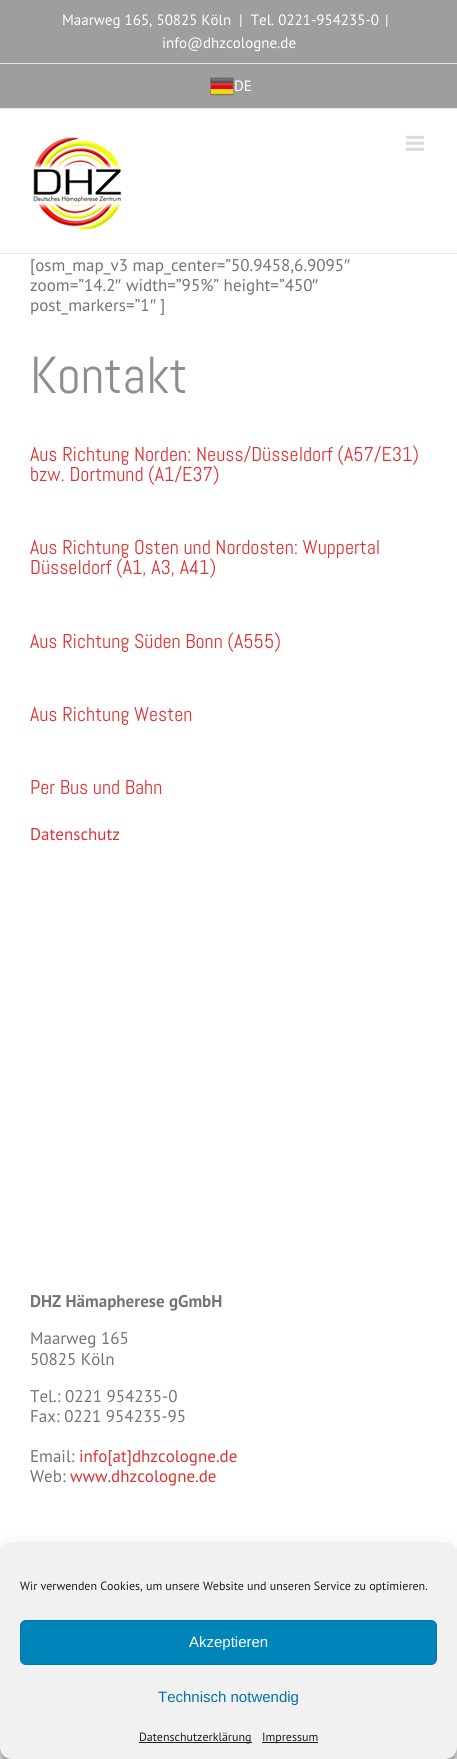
#include <cairo.h>
#include <math.h>
#include <stddef.h>

typedef struct { double x, y; const char *s; } line_t;
typedef struct { double x, y, w, h; unsigned color; } box_t;

static void ink(cairo_t *ctx, unsigned color) {
    cairo_set_source_rgb(ctx, (color >> 16) / 255.0, (color >> 8 & 255) / 255.0, (color & 255) / 255.0);
}

static void round_path(cairo_t *ctx, double x, double y, double w, double h, double r) {
    cairo_new_sub_path(ctx);
    cairo_arc(ctx, x + w - r, y + h - r, r, 0, M_PI / 2);
    cairo_arc(ctx, x + r, y + h - r, r, M_PI / 2, M_PI);
    cairo_arc(ctx, x + r, y + r, r, M_PI, 1.5 * M_PI);
    cairo_arc(ctx, x + w - r, y + r, r, 1.5 * M_PI, 2 * M_PI);
    cairo_close_path(ctx);
}

static void blur_box(cairo_t *ctx, double x, double y, double w, double h, double r, double blur, double alpha) {
    cairo_push_group_with_content(ctx, CAIRO_CONTENT_ALPHA);
    cairo_set_operator(ctx, CAIRO_OPERATOR_SOURCE);
    for (int i = 15; i >= -15 && fmin(w, h) + blur * i / 3 > 0; i -= 2) {
        double e = blur * i / 6;
        cairo_set_source_rgba(ctx, 0, 0, 0, alpha * erfc((i - 1) / 8.5) / 2);
        round_path(ctx, x - e, y - e, w + 2 * e, h + 2 * e, fmax(0, fmin(r + e + blur * .6, fmin(w, h) / 2 + e)));
        cairo_fill(ctx);
    }
    cairo_pattern_t *soft = cairo_pop_group(ctx);
    cairo_mask(ctx, soft);
    cairo_pattern_destroy(soft);
}

static void paste(cairo_t *ctx, const char *path, double x, double y, double w, double h) {
    cairo_surface_t *image = cairo_image_surface_create_from_png(path);
    cairo_save(ctx);
    cairo_set_source_surface(ctx, image, x, y);
    cairo_rectangle(ctx, x, y, w, h);
    cairo_fill(ctx);
    cairo_restore(ctx);
    cairo_surface_destroy(image);
}

int main(void) {
    cairo_surface_t *surface = cairo_image_surface_create(CAIRO_FORMAT_RGB24, 457, 1759);
    cairo_t *ctx = cairo_create(surface);
    cairo_font_options_t *options = cairo_font_options_create();
    cairo_font_options_set_hint_metrics(options, CAIRO_HINT_METRICS_OFF);
    cairo_font_options_set_hint_style(options, CAIRO_HINT_STYLE_NONE);
    cairo_set_font_options(ctx, options);
    cairo_set_miter_limit(ctx, 4);
    ink(ctx, 0xEDEDED);
    cairo_paint(ctx);
    {
        static const box_t items[] = {
            {0, 0, 457, 108, 0x9E9E9E},
            {0, 108, 457, 1, 0xE5E5E5},
            {0, 63, 457, 1, 0xE5E5E5},
        };
        for (size_t i = 0; i < sizeof items / sizeof *items; i++) {
            ink(ctx, items[i].color);
            cairo_rectangle(ctx, items[i].x, items[i].y, items[i].w, items[i].h);
            cairo_fill(ctx);
        }
    }
    cairo_select_font_face(ctx, "PT Sans", CAIRO_FONT_SLANT_NORMAL, CAIRO_FONT_WEIGHT_NORMAL);
    cairo_set_font_size(ctx, 15);
    ink(ctx, 0xFFFFFF);
    {
        static const line_t items[] = {
            {62, 25, "Maarweg 165, 50825 Köln  |  Tel. 0221-954235-0"},
            {385, 25, "|"},
            {162, 48, "info@dhzcologne.de"},
        };
        for (size_t i = 0; i < sizeof items / sizeof *items; i++) {
            cairo_move_to(ctx, items[i].x, items[i].y);
            cairo_show_text(ctx, items[i].s);
        }
    }
    paste(ctx, "media/1.png", 210, 77, 24, 19);
    cairo_move_to(ctx, 234, 91);
    cairo_show_text(ctx, "DE");
    cairo_rectangle(ctx, 0, 109, 457, 144);
    cairo_fill(ctx);
    ink(ctx, 0xE5E5E5);
    cairo_rectangle(ctx, 0, 253, 457, 1);
    cairo_fill(ctx);
    paste(ctx, "media/2.png", 33, 137, 88, 95);
    paste(ctx, "media/3.png", 406, 135, 18, 16);
    ink(ctx, 0xFFFFFF);
    cairo_rectangle(ctx, 0, 254, 457, 1300);
    cairo_fill(ctx);
    cairo_set_font_size(ctx, 17);
    ink(ctx, 0x747474);
    cairo_move_to(ctx, 30, 271);
    cairo_show_text(ctx, "[osm_map_v3 map_center=”50.9458,6.9095");
    cairo_select_font_face(ctx, "Liberation Sans", CAIRO_FONT_SLANT_NORMAL, CAIRO_FONT_WEIGHT_NORMAL);
    cairo_move_to(ctx, 344, 271);
    cairo_show_text(ctx, "″");
    cairo_select_font_face(ctx, "PT Sans", CAIRO_FONT_SLANT_NORMAL, CAIRO_FONT_WEIGHT_NORMAL);
    cairo_move_to(ctx, 30, 291);
    cairo_show_text(ctx, "zoom=”14.2");
    cairo_select_font_face(ctx, "Liberation Sans", CAIRO_FONT_SLANT_NORMAL, CAIRO_FONT_WEIGHT_NORMAL);
    cairo_move_to(ctx, 115, 291);
    cairo_show_text(ctx, "″");
    cairo_select_font_face(ctx, "PT Sans", CAIRO_FONT_SLANT_NORMAL, CAIRO_FONT_WEIGHT_NORMAL);
    cairo_move_to(ctx, 126, 291);
    cairo_show_text(ctx, "width=”95%” height=”450");
    cairo_select_font_face(ctx, "Liberation Sans", CAIRO_FONT_SLANT_NORMAL, CAIRO_FONT_WEIGHT_NORMAL);
    cairo_move_to(ctx, 312, 291);
    cairo_show_text(ctx, "″");
    cairo_select_font_face(ctx, "PT Sans", CAIRO_FONT_SLANT_NORMAL, CAIRO_FONT_WEIGHT_NORMAL);
    cairo_move_to(ctx, 30, 311);
    cairo_show_text(ctx, "post_markers=”1");
    cairo_select_font_face(ctx, "Liberation Sans", CAIRO_FONT_SLANT_NORMAL, CAIRO_FONT_WEIGHT_NORMAL);
    cairo_move_to(ctx, 150, 311);
    cairo_show_text(ctx, "″");
    cairo_select_font_face(ctx, "PT Sans", CAIRO_FONT_SLANT_NORMAL, CAIRO_FONT_WEIGHT_NORMAL);
    cairo_move_to(ctx, 160, 311);
    cairo_show_text(ctx, "]");
    cairo_select_font_face(ctx, "Abel", CAIRO_FONT_SLANT_NORMAL, CAIRO_FONT_WEIGHT_NORMAL);
    cairo_set_font_size(ctx, 52);
    ink(ctx, 0x8E8E8E);
    cairo_move_to(ctx, 30, 393);
    cairo_show_text(ctx, "Kontakt");
    cairo_set_font_size(ctx, 20);
    ink(ctx, 0xDD3333);
    {
        static const line_t items[] = {
            {30, 461, "Aus Richtung Norden: Neuss/Düsseldorf (A57/E31)"},
            {30, 481, "bzw. Dortmund (A1/E37)"},
            {30, 554, "Aus Richtung Osten und Nordosten: Wuppertal"},
            {30, 574, "Düsseldorf (A1, A3, A41)"},
            {30, 648, "Aus Richtung Süden Bonn (A555)"},
            {30, 721, "Aus Richtung Westen"},
            {30, 794, "Per Bus und Bahn"},
        };
        for (size_t i = 0; i < sizeof items / sizeof *items; i++) {
            cairo_move_to(ctx, items[i].x, items[i].y);
            cairo_show_text(ctx, items[i].s);
        }
    }
    cairo_select_font_face(ctx, "PT Sans", CAIRO_FONT_SLANT_NORMAL, CAIRO_FONT_WEIGHT_NORMAL);
    cairo_set_font_size(ctx, 17);
    cairo_move_to(ctx, 30, 840);
    cairo_show_text(ctx, "Datenschutz");
    cairo_select_font_face(ctx, "PT Sans", CAIRO_FONT_SLANT_NORMAL, CAIRO_FONT_WEIGHT_BOLD);
    ink(ctx, 0x747474);
    cairo_move_to(ctx, 30, 1307);
    cairo_show_text(ctx, "DHZ Hämapherese gGmbH");
    cairo_select_font_face(ctx, "PT Sans", CAIRO_FONT_SLANT_NORMAL, CAIRO_FONT_WEIGHT_NORMAL);
    {
        static const line_t items[] = {
            {30, 1344, "Maarweg 165"},
            {30, 1365, "50825 Köln"},
            {30, 1402, "Tel.: 0221 954235-0"},
            {30, 1422, "Fax: 0221 954235-95"},
            {30, 1462, "Email:"},
        };
        for (size_t i = 0; i < sizeof items / sizeof *items; i++) {
            cairo_move_to(ctx, items[i].x, items[i].y);
            cairo_show_text(ctx, items[i].s);
        }
    }
    ink(ctx, 0xDD3333);
    cairo_move_to(ctx, 79, 1462);
    cairo_show_text(ctx, "info[at]dhzcologne.de");
    ink(ctx, 0x747474);
    cairo_move_to(ctx, 30, 1482);
    cairo_show_text(ctx, "Web:");
    ink(ctx, 0xDD3333);
    cairo_move_to(ctx, 70, 1482);
    cairo_show_text(ctx, "www.dhzcologne.de");
    ink(ctx, 0x000000);
    blur_box(ctx, 0, 1548, 457, 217, 12, 3, 0.23);
    blur_box(ctx, 0, 1552, 457, 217, 12, 10, 0.19);
    ink(ctx, 0xF1F1F1);
    round_path(ctx, 0, 1542, 457, 217, 12);
    cairo_fill(ctx);
    cairo_set_font_size(ctx, 12);
    ink(ctx, 0x191E23);
    cairo_move_to(ctx, 20, 1590);
    cairo_show_text(ctx, "Wir verwenden Cookies, um unsere Website und unseren Service zu optimieren.");
    ink(ctx, 0x0085BA);
    round_path(ctx, 20.5, 1620.5, 416, 44, 5.5);
    cairo_fill_preserve(ctx);
    ink(ctx, 0x0073AA);
    cairo_set_line_width(ctx, 1);
    cairo_stroke(ctx);
    cairo_select_font_face(ctx, "Liberation Sans", CAIRO_FONT_SLANT_NORMAL, CAIRO_FONT_WEIGHT_NORMAL);
    cairo_set_font_size(ctx, 15);
    ink(ctx, 0xFFFFFF);
    cairo_move_to(ctx, 189, 1647);
    cairo_show_text(ctx, "Akzeptieren");
    ink(ctx, 0x0073AA);
    cairo_move_to(ctx, 158, 1702);
    cairo_show_text(ctx, "Technisch notwendig");
    ink(ctx, 0x191E23);
    cairo_rectangle(ctx, 139, 1742, 113, 1);
    cairo_fill(ctx);
    cairo_select_font_face(ctx, "PT Sans", CAIRO_FONT_SLANT_NORMAL, CAIRO_FONT_WEIGHT_NORMAL);
    cairo_set_font_size(ctx, 12);
    cairo_move_to(ctx, 139, 1741);
    cairo_show_text(ctx, "Datenschutzerklärung");
    cairo_rectangle(ctx, 262, 1742, 56, 1);
    cairo_fill(ctx);
    cairo_move_to(ctx, 262, 1741);
    cairo_show_text(ctx, "Impressum");
    cairo_surface_write_to_png(surface, "image.png");
    cairo_font_options_destroy(options);
    cairo_destroy(ctx);
    cairo_surface_destroy(surface);
    return 0;
}
